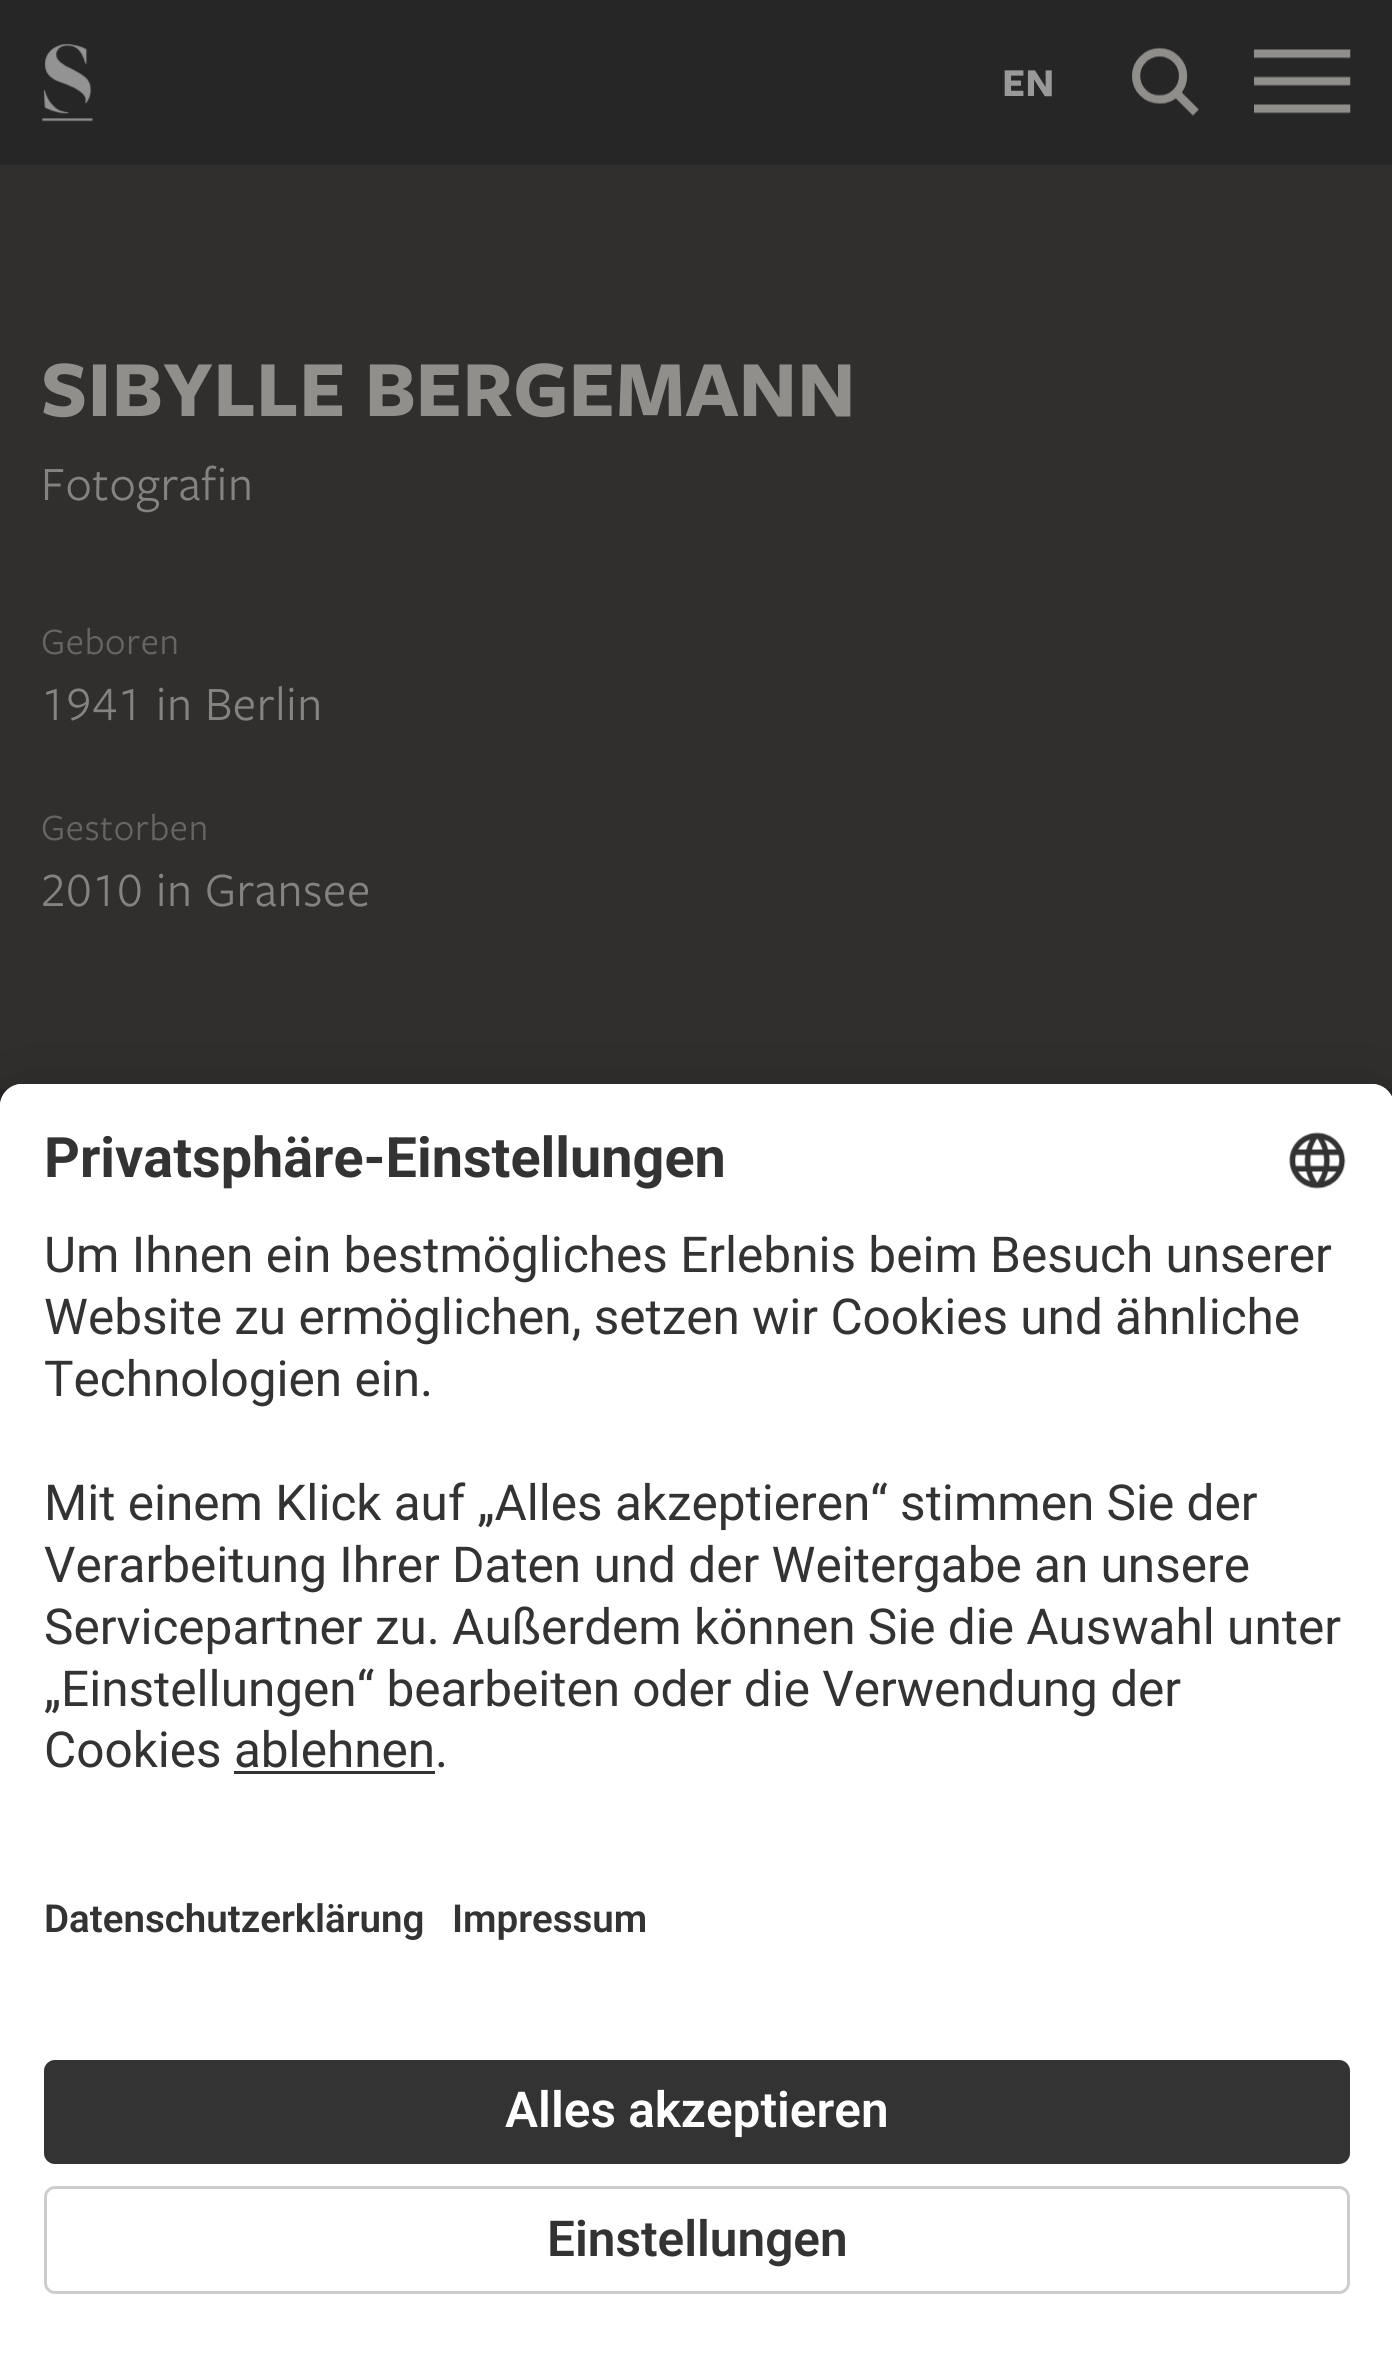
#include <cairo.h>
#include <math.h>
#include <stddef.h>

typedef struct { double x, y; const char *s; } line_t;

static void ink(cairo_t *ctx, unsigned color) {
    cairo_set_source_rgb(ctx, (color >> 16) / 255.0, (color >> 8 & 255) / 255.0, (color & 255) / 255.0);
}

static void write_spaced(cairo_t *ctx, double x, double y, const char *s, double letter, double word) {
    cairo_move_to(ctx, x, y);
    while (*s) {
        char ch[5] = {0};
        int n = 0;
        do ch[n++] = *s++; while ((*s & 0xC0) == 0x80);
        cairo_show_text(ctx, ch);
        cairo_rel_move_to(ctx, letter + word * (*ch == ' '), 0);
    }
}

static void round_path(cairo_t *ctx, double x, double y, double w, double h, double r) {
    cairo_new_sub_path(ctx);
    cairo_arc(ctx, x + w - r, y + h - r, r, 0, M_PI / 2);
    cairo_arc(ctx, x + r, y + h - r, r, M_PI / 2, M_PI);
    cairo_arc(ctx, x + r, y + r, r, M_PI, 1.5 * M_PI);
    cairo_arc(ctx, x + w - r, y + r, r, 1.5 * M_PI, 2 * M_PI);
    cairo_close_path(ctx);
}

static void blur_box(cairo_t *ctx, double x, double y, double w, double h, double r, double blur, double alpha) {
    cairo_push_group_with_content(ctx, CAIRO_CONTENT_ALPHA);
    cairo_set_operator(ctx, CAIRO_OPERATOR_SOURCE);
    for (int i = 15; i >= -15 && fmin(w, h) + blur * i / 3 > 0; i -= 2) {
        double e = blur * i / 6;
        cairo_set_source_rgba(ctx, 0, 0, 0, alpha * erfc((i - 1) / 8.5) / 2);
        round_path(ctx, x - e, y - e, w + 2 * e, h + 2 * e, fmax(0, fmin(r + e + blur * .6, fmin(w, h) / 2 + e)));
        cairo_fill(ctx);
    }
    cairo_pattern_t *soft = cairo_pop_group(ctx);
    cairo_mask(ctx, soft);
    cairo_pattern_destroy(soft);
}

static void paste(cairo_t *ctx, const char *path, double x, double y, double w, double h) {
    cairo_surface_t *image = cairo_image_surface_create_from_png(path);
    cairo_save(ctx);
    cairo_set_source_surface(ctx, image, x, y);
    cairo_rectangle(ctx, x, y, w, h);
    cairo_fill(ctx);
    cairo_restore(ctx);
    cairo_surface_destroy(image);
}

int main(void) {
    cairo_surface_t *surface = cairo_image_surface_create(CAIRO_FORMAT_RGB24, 1392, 2368);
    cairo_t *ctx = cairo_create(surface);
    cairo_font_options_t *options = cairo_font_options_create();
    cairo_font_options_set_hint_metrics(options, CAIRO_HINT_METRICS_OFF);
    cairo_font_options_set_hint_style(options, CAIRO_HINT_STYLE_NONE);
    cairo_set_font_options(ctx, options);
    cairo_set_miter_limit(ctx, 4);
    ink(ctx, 0x312F2E);
    cairo_paint(ctx);
    ink(ctx, 0x272626);
    cairo_rectangle(ctx, 0, 0, 1392, 165);
    cairo_fill(ctx);
    paste(ctx, "media/1.png", 42, 44, 52, 78);
    cairo_select_font_face(ctx, "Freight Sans", CAIRO_FONT_SLANT_NORMAL, CAIRO_FONT_WEIGHT_BOLD);
    cairo_set_font_size(ctx, 41);
    ink(ctx, 0x999999);
    cairo_move_to(ctx, 1002, 96);
    cairo_show_text(ctx, "EN");
    paste(ctx, "media/2.png", 1132, 47, 67, 69);
    paste(ctx, "media/3.png", 1254, 49, 97, 65);
    cairo_set_font_size(ctx, 82.5);
    ink(ctx, 0x908F8B);
    cairo_move_to(ctx, 41, 416);
    cairo_show_text(ctx, "SIBYLLE BERGEMANN");
    cairo_select_font_face(ctx, "Freight Sans", CAIRO_FONT_SLANT_NORMAL, CAIRO_FONT_WEIGHT_NORMAL);
    cairo_set_font_size(ctx, 49.5);
    ink(ctx, 0x858380);
    write_spaced(ctx, 41, 500, "Fotografin", 0.75, 0);
    cairo_set_font_size(ctx, 38.5);
    ink(ctx, 0x666562);
    write_spaced(ctx, 41, 654, "Geboren", 0.75, 0);
    cairo_select_font_face(ctx, "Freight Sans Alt", CAIRO_FONT_SLANT_NORMAL, CAIRO_FONT_WEIGHT_NORMAL);
    cairo_set_font_size(ctx, 49.5);
    ink(ctx, 0x858380);
    write_spaced(ctx, 41, 720, "1941", 0.75, 0);
    cairo_select_font_face(ctx, "Freight Sans", CAIRO_FONT_SLANT_NORMAL, CAIRO_FONT_WEIGHT_NORMAL);
    write_spaced(ctx, 156, 720, "in Berlin", 0.75, 0);
    cairo_set_font_size(ctx, 38.5);
    ink(ctx, 0x666562);
    write_spaced(ctx, 41, 840, "Gestorben", 0.75, 0);
    cairo_select_font_face(ctx, "Freight Sans Alt", CAIRO_FONT_SLANT_NORMAL, CAIRO_FONT_WEIGHT_NORMAL);
    cairo_set_font_size(ctx, 49.5);
    ink(ctx, 0x858380);
    write_spaced(ctx, 41, 906, "2010", 0.75, 0);
    cairo_select_font_face(ctx, "Freight Sans", CAIRO_FONT_SLANT_NORMAL, CAIRO_FONT_WEIGHT_NORMAL);
    write_spaced(ctx, 156, 906, "in Gransee", 0.75, 0);
    ink(ctx, 0x272525);
    cairo_rectangle(ctx, 0, 1089, 1392, 17);
    cairo_fill(ctx);
    ink(ctx, 0x000000);
    blur_box(ctx, 0, 1097, 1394, 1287, 22, 36, 0.22);
    ink(ctx, 0xFFFFFF);
    cairo_new_path(ctx);
    cairo_move_to(ctx, 22, 1084);
    cairo_line_to(ctx, 1372, 1084);
    cairo_curve_to(ctx, 1384, 1084, 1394, 1094, 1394, 1106);
    cairo_line_to(ctx, 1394, 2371);
    cairo_line_to(ctx, 0, 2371);
    cairo_line_to(ctx, 0, 1106);
    cairo_curve_to(ctx, 0, 1094, 10, 1084, 22, 1084);
    cairo_close_path(ctx);
    cairo_fill(ctx);
    cairo_new_path(ctx);
    cairo_move_to(ctx, 22, 1084);
    cairo_line_to(ctx, 1372, 1084);
    cairo_curve_to(ctx, 1384, 1084, 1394, 1094, 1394, 1106);
    cairo_line_to(ctx, 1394, 2027);
    cairo_line_to(ctx, 0, 2027);
    cairo_line_to(ctx, 0, 1106);
    cairo_curve_to(ctx, 0, 1094, 10, 1084, 22, 1084);
    cairo_close_path(ctx);
    cairo_fill(ctx);
    cairo_select_font_face(ctx, "Roboto", CAIRO_FONT_SLANT_NORMAL, CAIRO_FONT_WEIGHT_BOLD);
    cairo_set_font_size(ctx, 55.75);
    ink(ctx, 0x333333);
    cairo_move_to(ctx, 44, 1177);
    cairo_show_text(ctx, "Privatsphäre-Einstellungen");
    paste(ctx, "media/4.png", 1289, 1132, 57, 57);
    cairo_select_font_face(ctx, "Roboto", CAIRO_FONT_SLANT_NORMAL, CAIRO_FONT_WEIGHT_NORMAL);
    cairo_set_font_size(ctx, 49.5);
    {
        static const line_t items[] = {
            {44, 1272, "Um Ihnen ein bestmögliches Erlebnis beim Besuch unserer"},
            {44, 1334, "Website zu ermöglichen, setzen wir Cookies und ähnliche"},
            {44, 1396, "Technologien ein."},
            {44, 1520, "Mit einem Klick auf „Alles akzeptieren“ stimmen Sie der"},
            {44, 1582, "Verarbeitung Ihrer Daten und der Weitergabe an unsere"},
            {44, 1644, "Servicepartner zu. Außerdem können Sie die Auswahl unter"},
            {44, 1706, "„Einstellungen“ bearbeiten oder die Verwendung der"},
            {44, 1767, "Cookies ablehnen."},
        };
        for (size_t i = 0; i < sizeof items / sizeof *items; i++) {
            cairo_move_to(ctx, items[i].x, items[i].y);
            cairo_show_text(ctx, items[i].s);
        }
    }
    cairo_rectangle(ctx, 234, 1771, 201, 3);
    cairo_fill(ctx);
    cairo_select_font_face(ctx, "Roboto SemiBold", CAIRO_FONT_SLANT_NORMAL, CAIRO_FONT_WEIGHT_NORMAL);
    cairo_set_font_size(ctx, 38.5);
    cairo_move_to(ctx, 44, 1932);
    cairo_show_text(ctx, "Datenschutzerklärung");
    cairo_move_to(ctx, 452, 1932);
    cairo_show_text(ctx, "Impressum");
    round_path(ctx, 44, 2060, 1306, 104, 11);
    cairo_fill(ctx);
    round_path(ctx, 45.5, 2061.5, 1303, 101, 9.5);
    cairo_set_source_rgba(ctx, 0.208, 0.208, 0.208, 0.25);
    cairo_set_line_width(ctx, 3);
    cairo_stroke(ctx);
    cairo_set_font_size(ctx, 49.5);
    ink(ctx, 0xFFFFFF);
    cairo_move_to(ctx, 505, 2127);
    cairo_show_text(ctx, "Alles akzeptieren");
    round_path(ctx, 45.5, 2187.5, 1303, 105, 9.5);
    ink(ctx, 0xCDCDCD);
    cairo_stroke(ctx);
    ink(ctx, 0x333333);
    cairo_move_to(ctx, 547, 2256);
    cairo_show_text(ctx, "Einstellungen");
    cairo_surface_write_to_png(surface, "image.png");
    cairo_font_options_destroy(options);
    cairo_destroy(ctx);
    cairo_surface_destroy(surface);
    return 0;
}
